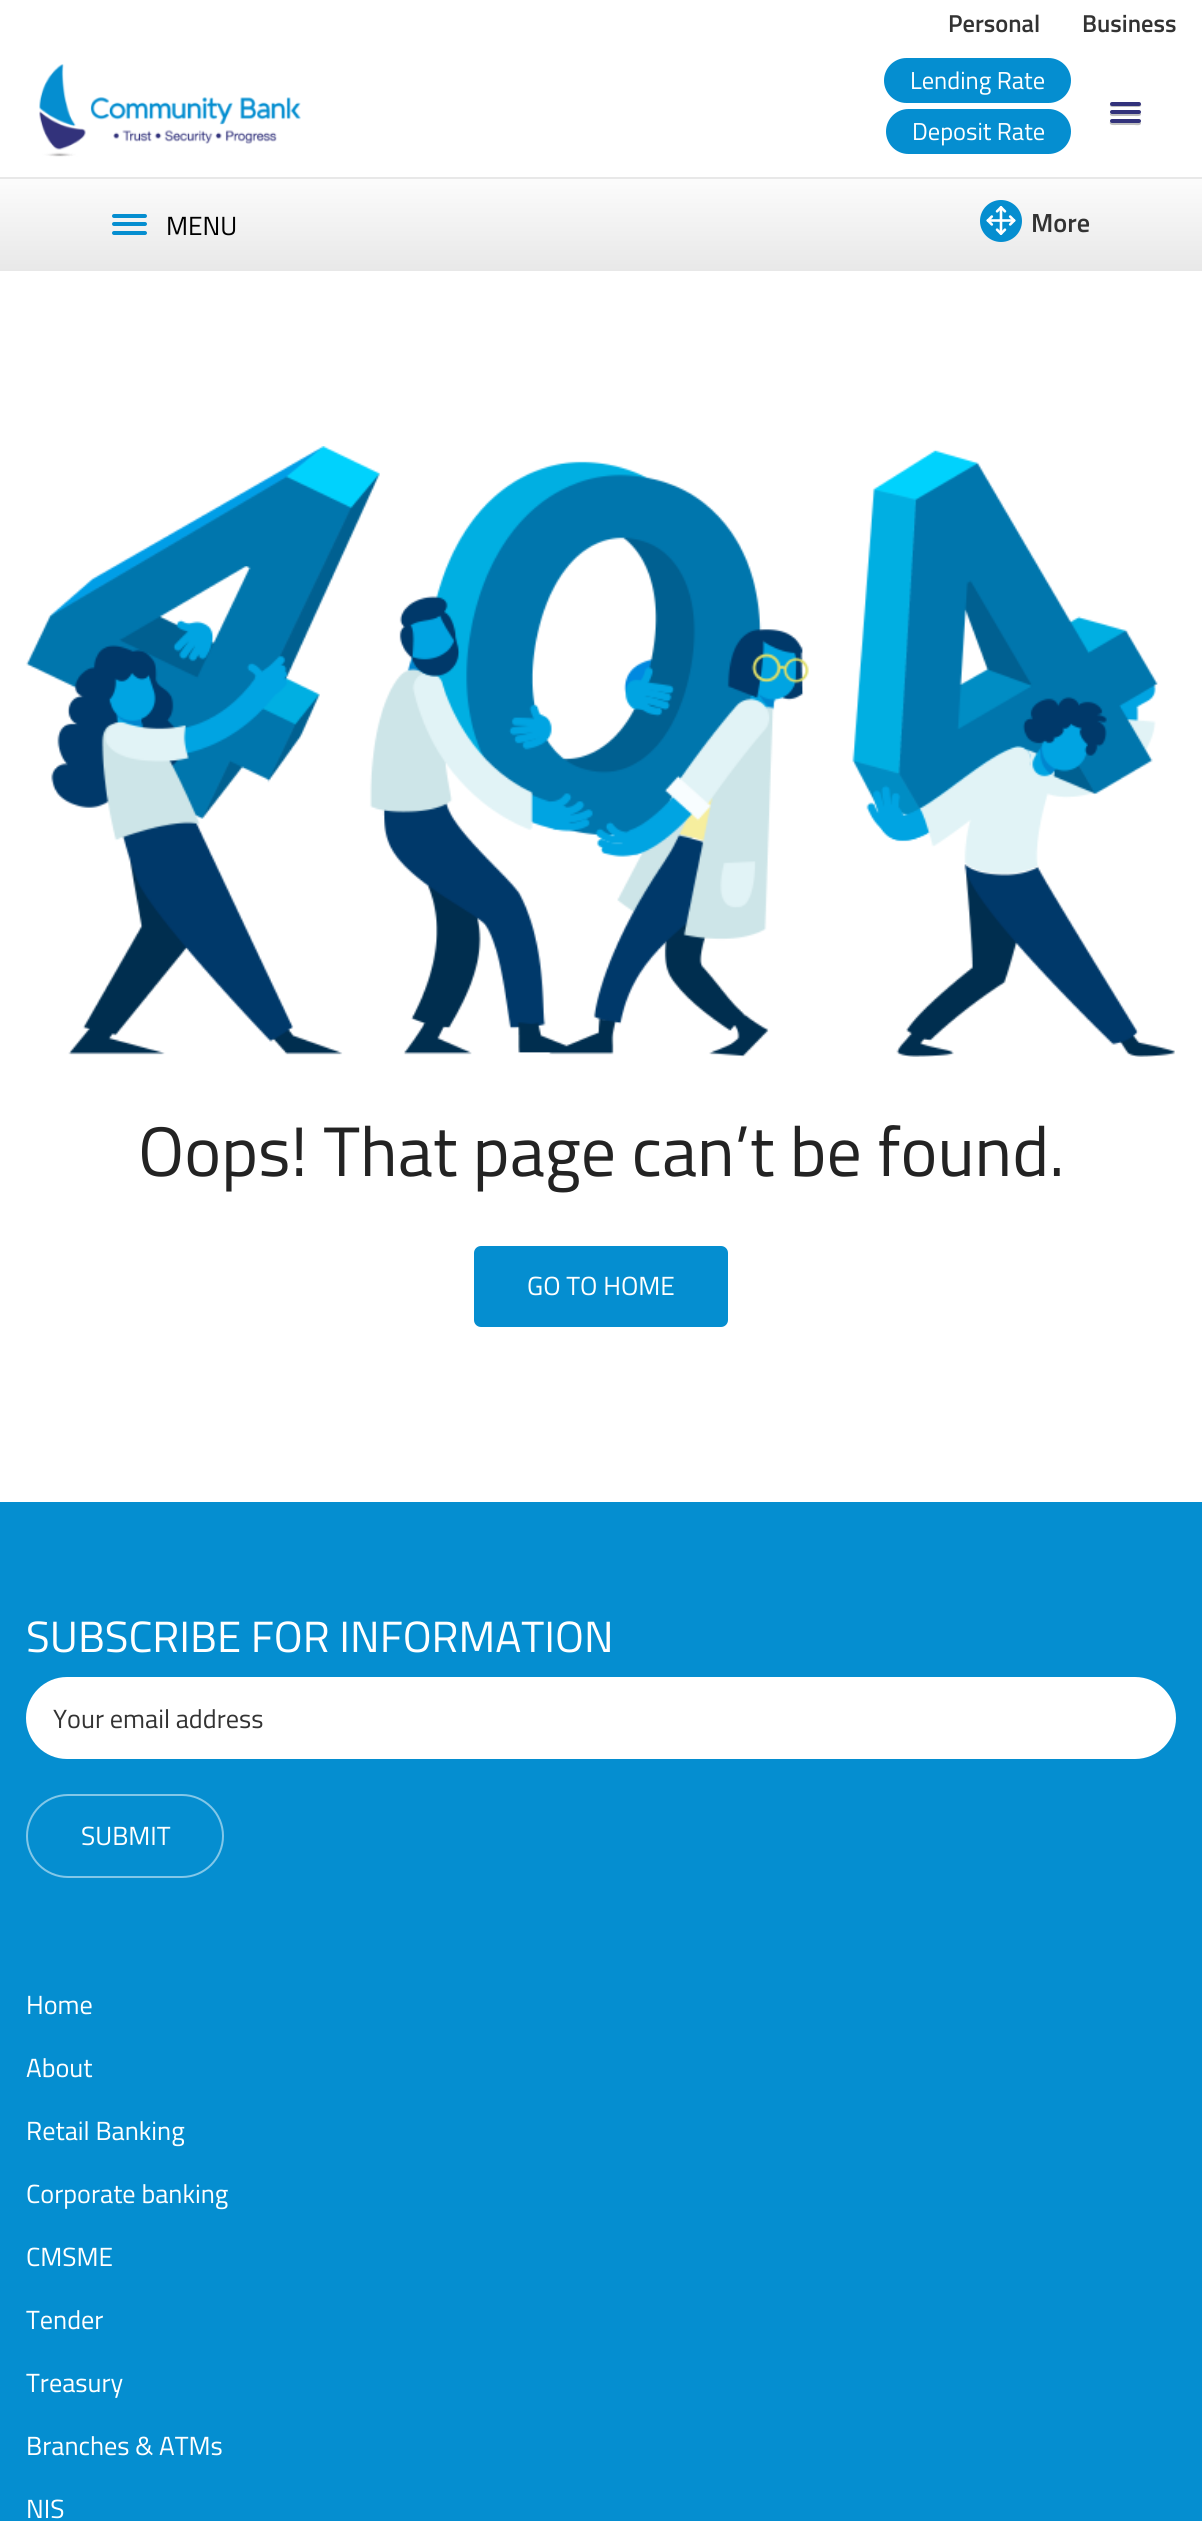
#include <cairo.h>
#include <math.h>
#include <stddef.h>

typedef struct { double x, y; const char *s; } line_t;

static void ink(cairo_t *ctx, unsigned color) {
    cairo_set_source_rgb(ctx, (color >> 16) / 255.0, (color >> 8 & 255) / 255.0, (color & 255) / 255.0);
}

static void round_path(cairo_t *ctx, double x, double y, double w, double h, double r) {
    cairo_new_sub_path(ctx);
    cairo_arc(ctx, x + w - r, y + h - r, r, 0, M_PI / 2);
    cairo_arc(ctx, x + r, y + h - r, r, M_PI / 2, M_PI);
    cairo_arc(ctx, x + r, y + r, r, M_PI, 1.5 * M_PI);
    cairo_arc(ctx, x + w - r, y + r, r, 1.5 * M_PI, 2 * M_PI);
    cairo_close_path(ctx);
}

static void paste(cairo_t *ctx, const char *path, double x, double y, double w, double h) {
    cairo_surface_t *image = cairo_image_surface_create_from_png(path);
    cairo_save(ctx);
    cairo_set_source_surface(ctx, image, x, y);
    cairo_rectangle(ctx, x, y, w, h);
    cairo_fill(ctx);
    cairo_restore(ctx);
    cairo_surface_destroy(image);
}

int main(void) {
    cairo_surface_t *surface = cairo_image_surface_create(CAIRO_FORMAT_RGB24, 1202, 2521);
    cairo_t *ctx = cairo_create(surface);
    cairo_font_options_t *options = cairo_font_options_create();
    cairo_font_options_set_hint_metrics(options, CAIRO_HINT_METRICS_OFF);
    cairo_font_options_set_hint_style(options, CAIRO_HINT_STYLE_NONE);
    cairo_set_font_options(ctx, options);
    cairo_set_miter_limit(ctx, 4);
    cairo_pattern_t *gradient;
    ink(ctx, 0xFFFFFF);
    cairo_paint(ctx);
    cairo_select_font_face(ctx, "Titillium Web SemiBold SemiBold", CAIRO_FONT_SLANT_NORMAL, CAIRO_FONT_WEIGHT_NORMAL);
    cairo_set_font_size(ctx, 24.5);
    ink(ctx, 0x333333);
    cairo_move_to(ctx, 948, 32);
    cairo_show_text(ctx, "Personal");
    cairo_move_to(ctx, 1082, 32);
    cairo_show_text(ctx, "Business");
    paste(ctx, "media/1.png", 39, 64, 262, 93);
    ink(ctx, 0x058ED0);
    round_path(ctx, 884, 58, 187, 45, 22.5);
    cairo_fill(ctx);
    cairo_select_font_face(ctx, "Titillium Web", CAIRO_FONT_SLANT_NORMAL, CAIRO_FONT_WEIGHT_NORMAL);
    ink(ctx, 0xFFFFFF);
    cairo_move_to(ctx, 910, 89);
    cairo_show_text(ctx, "Lending Rate");
    ink(ctx, 0x058ED0);
    round_path(ctx, 886, 109, 185, 45, 22.5);
    cairo_fill(ctx);
    ink(ctx, 0xFFFFFF);
    cairo_move_to(ctx, 912, 140);
    cairo_show_text(ctx, "Deposit Rate");
    ink(ctx, 0xBFBFBF);
    cairo_new_path(ctx);
    cairo_move_to(ctx, 1110, 104.5);
    cairo_curve_to(ctx, 1109, 108, 1115.5, 107, 1116.5, 107);
    cairo_line_to(ctx, 1134.5, 107);
    cairo_curve_to(ctx, 1135.5, 107, 1142.5, 108, 1141, 104);
    cairo_line_to(ctx, 1139.5, 105);
    cairo_line_to(ctx, 1111, 105);
    cairo_close_path(ctx);
    cairo_fill(ctx);
    ink(ctx, 0x32327B);
    round_path(ctx, 1110, 102, 31, 4, 2);
    cairo_fill(ctx);
    ink(ctx, 0xBFBFBF);
    cairo_new_path(ctx);
    cairo_move_to(ctx, 1110, 113.5);
    cairo_curve_to(ctx, 1109, 117, 1115.5, 116, 1116.5, 116);
    cairo_line_to(ctx, 1134.5, 116);
    cairo_curve_to(ctx, 1135, 116, 1143, 117, 1140.5, 113);
    cairo_line_to(ctx, 1139.5, 113.5);
    cairo_line_to(ctx, 1111, 113.5);
    cairo_close_path(ctx);
    cairo_fill(ctx);
    ink(ctx, 0x32327B);
    round_path(ctx, 1110, 110, 31, 4, 2);
    cairo_fill(ctx);
    ink(ctx, 0xBFBFBF);
    cairo_new_path(ctx);
    cairo_move_to(ctx, 1110, 122);
    cairo_curve_to(ctx, 1108.5, 126, 1115.5, 125, 1116.5, 125);
    cairo_line_to(ctx, 1134.5, 125);
    cairo_curve_to(ctx, 1135.5, 125, 1140.5, 126, 1141, 123.5);
    cairo_line_to(ctx, 1140.5, 122);
    cairo_line_to(ctx, 1139.5, 122.5);
    cairo_curve_to(ctx, 1137, 123, 1111, 123, 1110, 122);
    cairo_close_path(ctx);
    cairo_fill(ctx);
    ink(ctx, 0x32327B);
    round_path(ctx, 1110, 119, 31, 4, 2);
    cairo_fill(ctx);
    gradient = cairo_pattern_create_linear(601, 86, 601, 179);
    cairo_pattern_add_color_stop_rgba(gradient, 0, 0.988, 0.988, 0.988, 1);
    cairo_pattern_add_color_stop_rgba(gradient, 1, 0.91, 0.91, 0.91, 1);
    cairo_set_source(ctx, gradient);
    cairo_pattern_destroy(gradient);
    cairo_rectangle(ctx, 0, 177, 1202, 2);
    cairo_fill(ctx);
    gradient = cairo_pattern_create_linear(601, 178, 601, 271);
    cairo_pattern_add_color_stop_rgba(gradient, 0, 0.988, 0.988, 0.988, 1);
    cairo_pattern_add_color_stop_rgba(gradient, 1, 0.91, 0.91, 0.91, 1);
    cairo_set_source(ctx, gradient);
    cairo_pattern_destroy(gradient);
    cairo_rectangle(ctx, 0, 179, 1202, 92);
    cairo_fill(ctx);
    ink(ctx, 0x058ED0);
    round_path(ctx, 112, 214, 35, 4, 2);
    cairo_fill(ctx);
    round_path(ctx, 112, 222, 35, 4, 2);
    cairo_fill(ctx);
    round_path(ctx, 112, 231, 35, 4, 2);
    cairo_fill(ctx);
    cairo_set_font_size(ctx, 26.25);
    ink(ctx, 0x000000);
    cairo_move_to(ctx, 166, 235);
    cairo_show_text(ctx, "MENU");
    ink(ctx, 0x058ED0);
    cairo_new_path(ctx);
    cairo_arc(ctx, 1001, 221, 21, 0, 2 * M_PI);
    cairo_fill(ctx);
    paste(ctx, "media/2.png", 986, 206, 30, 29);
    cairo_select_font_face(ctx, "Titillium Web SemiBold SemiBold", CAIRO_FONT_SLANT_NORMAL, CAIRO_FONT_WEIGHT_NORMAL);
    ink(ctx, 0x333333);
    cairo_move_to(ctx, 1031, 232);
    cairo_show_text(ctx, "More");
    paste(ctx, "media/3.png", 26, 446, 1149, 611);
    cairo_select_font_face(ctx, "Titillium Web", CAIRO_FONT_SLANT_NORMAL, CAIRO_FONT_WEIGHT_NORMAL);
    cairo_set_font_size(ctx, 70);
    ink(ctx, 0x232323);
    cairo_move_to(ctx, 138, 1176);
    cairo_show_text(ctx, "Oops! That page can’t be found.");
    ink(ctx, 0x058ED0);
    round_path(ctx, 474, 1246, 254, 81, 7);
    cairo_fill(ctx);
    cairo_set_font_size(ctx, 26.25);
    ink(ctx, 0xFFFFFF);
    cairo_move_to(ctx, 527, 1295);
    cairo_show_text(ctx, "GO TO HOME");
    ink(ctx, 0x058ED0);
    cairo_rectangle(ctx, 0, 1502, 1202, 1019);
    cairo_fill(ctx);
    cairo_set_font_size(ctx, 43.75);
    ink(ctx, 0xFFFFFF);
    cairo_move_to(ctx, 26, 1652);
    cairo_show_text(ctx, "SUBSCRIBE FOR INFORMATION");
    round_path(ctx, 26, 1677, 1150, 82, 41);
    cairo_fill(ctx);
    cairo_set_font_size(ctx, 26.25);
    ink(ctx, 0x333333);
    cairo_move_to(ctx, 53, 1728);
    cairo_show_text(ctx, "Your email address");
    round_path(ctx, 27, 1795, 196, 82, 41);
    ink(ctx, 0x82C7E8);
    cairo_stroke(ctx);
    ink(ctx, 0xFFFFFF);
    {
        static const line_t items[] = {
            {81, 1845, "SUBMIT"},
            {26, 2014, "Home"},
            {26, 2077, "About"},
            {26, 2140, "Retail Banking"},
            {26, 2203, "Corporate banking"},
            {26, 2266, "CMSME"},
            {26, 2329, "Tender"},
            {26, 2392, "Treasury"},
            {26, 2455, "Branches & ATMs"},
            {26, 2518, "NIS"},
        };
        for (size_t i = 0; i < sizeof items / sizeof *items; i++) {
            cairo_move_to(ctx, items[i].x, items[i].y);
            cairo_show_text(ctx, items[i].s);
        }
    }
    cairo_surface_write_to_png(surface, "image.png");
    cairo_font_options_destroy(options);
    cairo_destroy(ctx);
    cairo_surface_destroy(surface);
    return 0;
}
